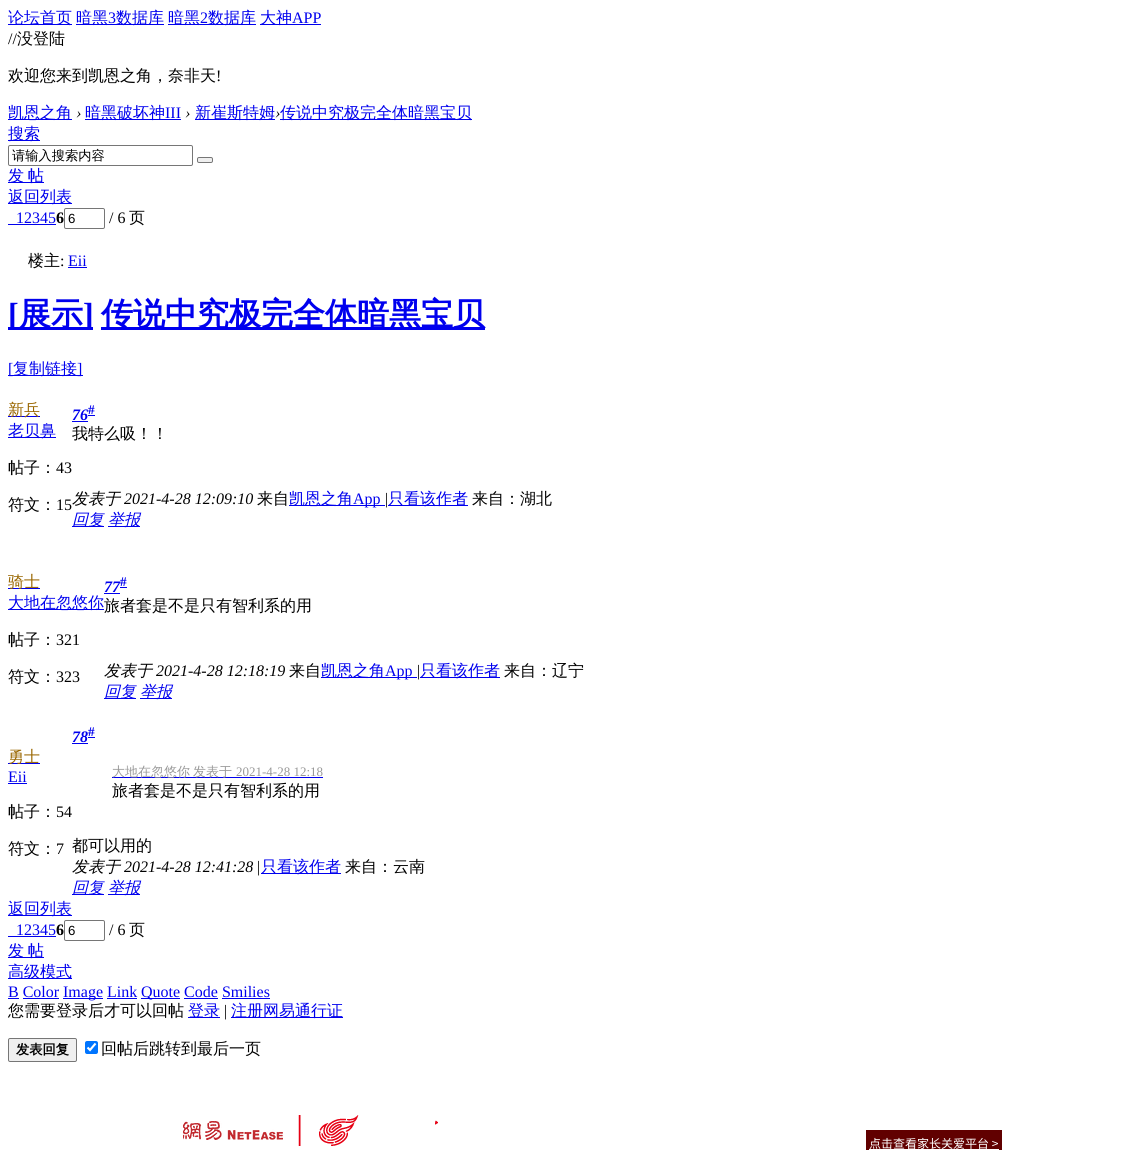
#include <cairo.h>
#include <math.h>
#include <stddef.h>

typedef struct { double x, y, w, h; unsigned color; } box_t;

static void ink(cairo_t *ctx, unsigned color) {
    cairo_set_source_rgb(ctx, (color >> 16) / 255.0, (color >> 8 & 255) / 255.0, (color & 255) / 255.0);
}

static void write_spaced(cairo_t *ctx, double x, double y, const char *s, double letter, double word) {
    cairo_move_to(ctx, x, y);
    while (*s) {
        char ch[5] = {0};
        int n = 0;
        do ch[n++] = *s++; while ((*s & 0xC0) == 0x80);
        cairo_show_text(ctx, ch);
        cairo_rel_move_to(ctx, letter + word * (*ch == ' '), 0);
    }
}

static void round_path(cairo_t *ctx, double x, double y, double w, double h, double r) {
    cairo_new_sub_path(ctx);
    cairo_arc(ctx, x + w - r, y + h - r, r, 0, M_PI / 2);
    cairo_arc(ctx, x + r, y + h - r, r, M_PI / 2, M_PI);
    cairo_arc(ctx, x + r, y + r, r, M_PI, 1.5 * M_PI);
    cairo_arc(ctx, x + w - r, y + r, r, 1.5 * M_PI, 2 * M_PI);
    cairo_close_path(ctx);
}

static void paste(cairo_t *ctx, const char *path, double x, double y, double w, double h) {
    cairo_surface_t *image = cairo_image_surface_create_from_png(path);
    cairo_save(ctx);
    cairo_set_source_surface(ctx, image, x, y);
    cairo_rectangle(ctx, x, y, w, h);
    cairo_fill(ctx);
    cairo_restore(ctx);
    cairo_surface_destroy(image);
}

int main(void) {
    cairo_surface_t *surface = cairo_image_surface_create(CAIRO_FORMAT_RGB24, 1129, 1150);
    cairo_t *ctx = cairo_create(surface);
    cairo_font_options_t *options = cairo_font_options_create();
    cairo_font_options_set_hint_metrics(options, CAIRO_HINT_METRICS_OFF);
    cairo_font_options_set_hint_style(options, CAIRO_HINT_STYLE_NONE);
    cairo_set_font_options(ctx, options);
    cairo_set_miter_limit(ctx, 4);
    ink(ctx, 0xFFFFFF);
    cairo_paint(ctx);
    ink(ctx, 0x0000EE);
    cairo_rectangle(ctx, 8, 24, 64, 1);
    cairo_fill(ctx);
    cairo_select_font_face(ctx, "WenQuanYi Zen Hei Medium", CAIRO_FONT_SLANT_NORMAL, CAIRO_FONT_WEIGHT_NORMAL);
    cairo_set_font_size(ctx, 16);
    cairo_move_to(ctx, 8, 23);
    cairo_show_text(ctx, "论坛首页");
    cairo_rectangle(ctx, 76, 24, 88, 1);
    cairo_fill(ctx);
    cairo_move_to(ctx, 76, 23);
    cairo_show_text(ctx, "暗黑");
    cairo_select_font_face(ctx, "Liberation Serif", CAIRO_FONT_SLANT_NORMAL, CAIRO_FONT_WEIGHT_NORMAL);
    cairo_move_to(ctx, 108, 23);
    cairo_show_text(ctx, "3");
    cairo_select_font_face(ctx, "WenQuanYi Zen Hei Medium", CAIRO_FONT_SLANT_NORMAL, CAIRO_FONT_WEIGHT_NORMAL);
    cairo_move_to(ctx, 116, 23);
    cairo_show_text(ctx, "数据库");
    cairo_rectangle(ctx, 168, 24, 88, 1);
    cairo_fill(ctx);
    cairo_move_to(ctx, 168, 23);
    cairo_show_text(ctx, "暗黑");
    cairo_select_font_face(ctx, "Liberation Serif", CAIRO_FONT_SLANT_NORMAL, CAIRO_FONT_WEIGHT_NORMAL);
    cairo_move_to(ctx, 200, 23);
    cairo_show_text(ctx, "2");
    cairo_select_font_face(ctx, "WenQuanYi Zen Hei Medium", CAIRO_FONT_SLANT_NORMAL, CAIRO_FONT_WEIGHT_NORMAL);
    cairo_move_to(ctx, 208, 23);
    cairo_show_text(ctx, "数据库");
    cairo_rectangle(ctx, 260, 24, 61, 1);
    cairo_fill(ctx);
    cairo_move_to(ctx, 260, 23);
    cairo_show_text(ctx, "大神");
    cairo_select_font_face(ctx, "Liberation Serif", CAIRO_FONT_SLANT_NORMAL, CAIRO_FONT_WEIGHT_NORMAL);
    cairo_move_to(ctx, 292, 23);
    cairo_show_text(ctx, "APP");
    ink(ctx, 0x000000);
    cairo_move_to(ctx, 8, 44);
    cairo_show_text(ctx, "//");
    cairo_select_font_face(ctx, "WenQuanYi Zen Hei Medium", CAIRO_FONT_SLANT_NORMAL, CAIRO_FONT_WEIGHT_NORMAL);
    cairo_move_to(ctx, 17, 44);
    cairo_show_text(ctx, "没登陆");
    cairo_move_to(ctx, 8, 81);
    cairo_show_text(ctx, "欢迎您来到凯恩之角，奈非天");
    cairo_select_font_face(ctx, "Liberation Serif", CAIRO_FONT_SLANT_NORMAL, CAIRO_FONT_WEIGHT_NORMAL);
    cairo_move_to(ctx, 216, 81);
    cairo_show_text(ctx, "!");
    ink(ctx, 0x0000EE);
    cairo_rectangle(ctx, 8, 119, 64, 1);
    cairo_fill(ctx);
    cairo_select_font_face(ctx, "WenQuanYi Zen Hei Medium", CAIRO_FONT_SLANT_NORMAL, CAIRO_FONT_WEIGHT_NORMAL);
    cairo_move_to(ctx, 8, 118);
    cairo_show_text(ctx, "凯恩之角");
    cairo_select_font_face(ctx, "Liberation Serif", CAIRO_FONT_SLANT_ITALIC, CAIRO_FONT_WEIGHT_NORMAL);
    ink(ctx, 0x000000);
    cairo_move_to(ctx, 76, 118);
    cairo_show_text(ctx, "›");
    ink(ctx, 0x0000EE);
    cairo_rectangle(ctx, 85, 119, 96, 1);
    cairo_fill(ctx);
    cairo_select_font_face(ctx, "WenQuanYi Zen Hei Medium", CAIRO_FONT_SLANT_NORMAL, CAIRO_FONT_WEIGHT_NORMAL);
    cairo_move_to(ctx, 85, 118);
    cairo_show_text(ctx, "暗黑破坏神");
    cairo_select_font_face(ctx, "Liberation Serif", CAIRO_FONT_SLANT_NORMAL, CAIRO_FONT_WEIGHT_NORMAL);
    cairo_move_to(ctx, 165, 118);
    cairo_show_text(ctx, "III");
    cairo_select_font_face(ctx, "Liberation Serif", CAIRO_FONT_SLANT_ITALIC, CAIRO_FONT_WEIGHT_NORMAL);
    ink(ctx, 0x000000);
    cairo_move_to(ctx, 185, 118);
    cairo_show_text(ctx, "›");
    ink(ctx, 0x0000EE);
    cairo_rectangle(ctx, 195, 119, 80, 1);
    cairo_fill(ctx);
    cairo_select_font_face(ctx, "WenQuanYi Zen Hei Medium", CAIRO_FONT_SLANT_NORMAL, CAIRO_FONT_WEIGHT_NORMAL);
    cairo_move_to(ctx, 195, 118);
    cairo_show_text(ctx, "新崔斯特姆");
    cairo_select_font_face(ctx, "Liberation Serif", CAIRO_FONT_SLANT_ITALIC, CAIRO_FONT_WEIGHT_NORMAL);
    ink(ctx, 0x000000);
    cairo_move_to(ctx, 275, 118);
    cairo_show_text(ctx, "›");
    ink(ctx, 0x0000EE);
    cairo_rectangle(ctx, 280, 119, 192, 1);
    cairo_fill(ctx);
    cairo_select_font_face(ctx, "WenQuanYi Zen Hei Medium", CAIRO_FONT_SLANT_NORMAL, CAIRO_FONT_WEIGHT_NORMAL);
    cairo_move_to(ctx, 280, 118);
    cairo_show_text(ctx, "传说中究极完全体暗黑宝贝");
    cairo_rectangle(ctx, 8, 140, 32, 1);
    cairo_fill(ctx);
    cairo_move_to(ctx, 8, 139);
    cairo_show_text(ctx, "搜索");
    round_path(ctx, 8.5, 145.5, 184, 20, 1.5);
    ink(ctx, 0x767676);
    cairo_set_line_width(ctx, 1);
    cairo_stroke(ctx);
    cairo_set_font_size(ctx, 13.25);
    ink(ctx, 0x000000);
    cairo_move_to(ctx, 12, 160);
    cairo_show_text(ctx, "请输入搜索内容");
    ink(ctx, 0xEFEFEF);
    round_path(ctx, 197.5, 157.5, 15, 5, 1.5);
    cairo_fill_preserve(ctx);
    ink(ctx, 0x767676);
    cairo_stroke(ctx);
    ink(ctx, 0x0000EE);
    cairo_rectangle(ctx, 8, 182, 36, 1);
    cairo_fill(ctx);
    cairo_set_font_size(ctx, 16);
    write_spaced(ctx, 8, 181, "发 帖", 0, -1);
    cairo_rectangle(ctx, 8, 203, 64, 1);
    cairo_fill(ctx);
    cairo_move_to(ctx, 8, 202);
    cairo_show_text(ctx, "返回列表");
    cairo_select_font_face(ctx, "Liberation Serif", CAIRO_FONT_SLANT_NORMAL, CAIRO_FONT_WEIGHT_NORMAL);
    cairo_move_to(ctx, 16, 223);
    cairo_show_text(ctx, "12345");
    cairo_select_font_face(ctx, "Liberation Serif", CAIRO_FONT_SLANT_NORMAL, CAIRO_FONT_WEIGHT_BOLD);
    ink(ctx, 0x000000);
    cairo_move_to(ctx, 56, 223);
    cairo_show_text(ctx, "6");
    round_path(ctx, 64.5, 208.5, 40, 20, 1.5);
    ink(ctx, 0x767676);
    cairo_stroke(ctx);
    cairo_select_font_face(ctx, "Liberation Sans", CAIRO_FONT_SLANT_NORMAL, CAIRO_FONT_WEIGHT_NORMAL);
    cairo_set_font_size(ctx, 13.25);
    ink(ctx, 0x000000);
    cairo_move_to(ctx, 68, 223);
    cairo_show_text(ctx, "6");
    cairo_select_font_face(ctx, "Liberation Serif", CAIRO_FONT_SLANT_NORMAL, CAIRO_FONT_WEIGHT_NORMAL);
    cairo_set_font_size(ctx, 16);
    cairo_move_to(ctx, 109, 223);
    cairo_show_text(ctx, "/ 6");
    cairo_select_font_face(ctx, "WenQuanYi Zen Hei Medium", CAIRO_FONT_SLANT_NORMAL, CAIRO_FONT_WEIGHT_NORMAL);
    cairo_move_to(ctx, 129, 223);
    cairo_show_text(ctx, "页");
    ink(ctx, 0x0000EE);
    cairo_rectangle(ctx, 8, 224, 48, 1);
    cairo_fill(ctx);
    ink(ctx, 0x000000);
    cairo_move_to(ctx, 28, 266);
    cairo_show_text(ctx, "楼主");
    cairo_select_font_face(ctx, "Liberation Serif", CAIRO_FONT_SLANT_NORMAL, CAIRO_FONT_WEIGHT_NORMAL);
    cairo_move_to(ctx, 60, 266);
    cairo_show_text(ctx, ":");
    ink(ctx, 0x0000EE);
    cairo_move_to(ctx, 68, 266);
    cairo_show_text(ctx, "Eii");
    cairo_rectangle(ctx, 68, 267, 19, 1);
    cairo_fill(ctx);
    cairo_rectangle(ctx, 8, 327, 85, 3);
    cairo_fill(ctx);
    cairo_select_font_face(ctx, "Liberation Serif", CAIRO_FONT_SLANT_NORMAL, CAIRO_FONT_WEIGHT_BOLD);
    cairo_set_font_size(ctx, 32);
    cairo_move_to(ctx, 8, 325);
    cairo_show_text(ctx, "[");
    cairo_select_font_face(ctx, "WenQuanYi Zen Hei", CAIRO_FONT_SLANT_NORMAL, CAIRO_FONT_WEIGHT_BOLD);
    cairo_move_to(ctx, 19, 325);
    cairo_show_text(ctx, "展示");
    cairo_select_font_face(ctx, "Liberation Serif", CAIRO_FONT_SLANT_NORMAL, CAIRO_FONT_WEIGHT_BOLD);
    cairo_move_to(ctx, 83, 325);
    cairo_show_text(ctx, "]");
    cairo_rectangle(ctx, 101, 327, 384, 3);
    cairo_fill(ctx);
    cairo_select_font_face(ctx, "WenQuanYi Zen Hei", CAIRO_FONT_SLANT_NORMAL, CAIRO_FONT_WEIGHT_BOLD);
    cairo_move_to(ctx, 101, 325);
    cairo_show_text(ctx, "传说中究极完全体暗黑宝贝");
    cairo_rectangle(ctx, 8, 375, 75, 1);
    cairo_fill(ctx);
    cairo_select_font_face(ctx, "Liberation Serif", CAIRO_FONT_SLANT_NORMAL, CAIRO_FONT_WEIGHT_NORMAL);
    cairo_set_font_size(ctx, 16);
    cairo_move_to(ctx, 8, 374);
    cairo_show_text(ctx, "[");
    cairo_select_font_face(ctx, "WenQuanYi Zen Hei Medium", CAIRO_FONT_SLANT_NORMAL, CAIRO_FONT_WEIGHT_NORMAL);
    cairo_move_to(ctx, 13, 374);
    cairo_show_text(ctx, "复制链接");
    cairo_select_font_face(ctx, "Liberation Serif", CAIRO_FONT_SLANT_NORMAL, CAIRO_FONT_WEIGHT_NORMAL);
    cairo_move_to(ctx, 77, 374);
    cairo_show_text(ctx, "]");
    cairo_rectangle(ctx, 8, 416, 32, 1);
    cairo_fill(ctx);
    cairo_select_font_face(ctx, "WenQuanYi Zen Hei Medium", CAIRO_FONT_SLANT_NORMAL, CAIRO_FONT_WEIGHT_NORMAL);
    ink(ctx, 0x996600);
    cairo_move_to(ctx, 8, 415);
    cairo_show_text(ctx, "新兵");
    ink(ctx, 0x0000EE);
    cairo_rectangle(ctx, 8, 437, 48, 1);
    cairo_fill(ctx);
    cairo_move_to(ctx, 8, 436);
    cairo_show_text(ctx, "老贝鼻");
    ink(ctx, 0x000000);
    cairo_move_to(ctx, 8, 473);
    cairo_show_text(ctx, "帖子：");
    cairo_select_font_face(ctx, "Liberation Serif", CAIRO_FONT_SLANT_NORMAL, CAIRO_FONT_WEIGHT_NORMAL);
    cairo_move_to(ctx, 56, 473);
    cairo_show_text(ctx, "43");
    cairo_select_font_face(ctx, "WenQuanYi Zen Hei Medium", CAIRO_FONT_SLANT_NORMAL, CAIRO_FONT_WEIGHT_NORMAL);
    cairo_move_to(ctx, 8, 510);
    cairo_show_text(ctx, "符文：");
    cairo_select_font_face(ctx, "Liberation Serif", CAIRO_FONT_SLANT_NORMAL, CAIRO_FONT_WEIGHT_NORMAL);
    cairo_move_to(ctx, 56, 510);
    cairo_show_text(ctx, "15");
    cairo_select_font_face(ctx, "Liberation Serif", CAIRO_FONT_SLANT_ITALIC, CAIRO_FONT_WEIGHT_BOLD);
    ink(ctx, 0x0000EE);
    cairo_move_to(ctx, 72, 420);
    cairo_show_text(ctx, "76");
    cairo_rectangle(ctx, 72, 421, 16, 1);
    cairo_fill(ctx);
    cairo_rectangle(ctx, 88, 415, 7, 1);
    cairo_fill(ctx);
    cairo_select_font_face(ctx, "Liberation Serif", CAIRO_FONT_SLANT_NORMAL, CAIRO_FONT_WEIGHT_BOLD);
    cairo_set_font_size(ctx, 13.25);
    cairo_move_to(ctx, 88, 414);
    cairo_show_text(ctx, "#");
    cairo_select_font_face(ctx, "WenQuanYi Zen Hei Medium", CAIRO_FONT_SLANT_NORMAL, CAIRO_FONT_WEIGHT_NORMAL);
    cairo_set_font_size(ctx, 16);
    ink(ctx, 0x000000);
    cairo_move_to(ctx, 72, 439);
    cairo_show_text(ctx, "我特么吸！！");
    cairo_select_font_face(ctx, "WenQuanYi Zen Hei Medium", CAIRO_FONT_SLANT_ITALIC, CAIRO_FONT_WEIGHT_NORMAL);
    cairo_move_to(ctx, 72, 504);
    cairo_show_text(ctx, "发表于");
    cairo_select_font_face(ctx, "Liberation Serif", CAIRO_FONT_SLANT_ITALIC, CAIRO_FONT_WEIGHT_NORMAL);
    cairo_move_to(ctx, 124, 504);
    cairo_show_text(ctx, "2021-4-28 12:09:10");
    cairo_select_font_face(ctx, "WenQuanYi Zen Hei Medium", CAIRO_FONT_SLANT_NORMAL, CAIRO_FONT_WEIGHT_NORMAL);
    cairo_move_to(ctx, 257, 504);
    cairo_show_text(ctx, "来自");
    ink(ctx, 0x0000EE);
    cairo_rectangle(ctx, 289, 505, 96, 1);
    cairo_fill(ctx);
    cairo_move_to(ctx, 289, 504);
    cairo_show_text(ctx, "凯恩之角");
    cairo_select_font_face(ctx, "Liberation Serif", CAIRO_FONT_SLANT_NORMAL, CAIRO_FONT_WEIGHT_NORMAL);
    cairo_move_to(ctx, 353, 504);
    cairo_show_text(ctx, "App");
    ink(ctx, 0x000000);
    cairo_move_to(ctx, 385, 504);
    cairo_show_text(ctx, "|");
    ink(ctx, 0x0000EE);
    cairo_rectangle(ctx, 388, 505, 80, 1);
    cairo_fill(ctx);
    cairo_select_font_face(ctx, "WenQuanYi Zen Hei Medium", CAIRO_FONT_SLANT_NORMAL, CAIRO_FONT_WEIGHT_NORMAL);
    cairo_move_to(ctx, 388, 504);
    cairo_show_text(ctx, "只看该作者");
    ink(ctx, 0x000000);
    cairo_move_to(ctx, 472, 504);
    cairo_show_text(ctx, "来自：湖北");
    ink(ctx, 0x0000EE);
    cairo_rectangle(ctx, 72, 526, 32, 1);
    cairo_fill(ctx);
    cairo_select_font_face(ctx, "WenQuanYi Zen Hei Medium", CAIRO_FONT_SLANT_ITALIC, CAIRO_FONT_WEIGHT_NORMAL);
    cairo_move_to(ctx, 72, 525);
    cairo_show_text(ctx, "回复");
    cairo_rectangle(ctx, 108, 526, 32, 1);
    cairo_fill(ctx);
    cairo_move_to(ctx, 108, 525);
    cairo_show_text(ctx, "举报");
    cairo_rectangle(ctx, 8, 588, 32, 1);
    cairo_fill(ctx);
    cairo_select_font_face(ctx, "WenQuanYi Zen Hei Medium", CAIRO_FONT_SLANT_NORMAL, CAIRO_FONT_WEIGHT_NORMAL);
    ink(ctx, 0x996600);
    cairo_move_to(ctx, 8, 587);
    cairo_show_text(ctx, "骑士");
    ink(ctx, 0x0000EE);
    cairo_rectangle(ctx, 8, 609, 96, 1);
    cairo_fill(ctx);
    cairo_move_to(ctx, 8, 608);
    cairo_show_text(ctx, "大地在忽悠你");
    ink(ctx, 0x000000);
    cairo_move_to(ctx, 8, 645);
    cairo_show_text(ctx, "帖子：");
    cairo_select_font_face(ctx, "Liberation Serif", CAIRO_FONT_SLANT_NORMAL, CAIRO_FONT_WEIGHT_NORMAL);
    cairo_move_to(ctx, 56, 645);
    cairo_show_text(ctx, "321");
    cairo_select_font_face(ctx, "WenQuanYi Zen Hei Medium", CAIRO_FONT_SLANT_NORMAL, CAIRO_FONT_WEIGHT_NORMAL);
    cairo_move_to(ctx, 8, 682);
    cairo_show_text(ctx, "符文：");
    cairo_select_font_face(ctx, "Liberation Serif", CAIRO_FONT_SLANT_NORMAL, CAIRO_FONT_WEIGHT_NORMAL);
    cairo_move_to(ctx, 56, 682);
    cairo_show_text(ctx, "323");
    cairo_select_font_face(ctx, "Liberation Serif", CAIRO_FONT_SLANT_ITALIC, CAIRO_FONT_WEIGHT_BOLD);
    ink(ctx, 0x0000EE);
    cairo_move_to(ctx, 104, 592);
    cairo_show_text(ctx, "77");
    cairo_rectangle(ctx, 104, 593, 16, 1);
    cairo_fill(ctx);
    cairo_rectangle(ctx, 120, 587, 7, 1);
    cairo_fill(ctx);
    cairo_select_font_face(ctx, "Liberation Serif", CAIRO_FONT_SLANT_NORMAL, CAIRO_FONT_WEIGHT_BOLD);
    cairo_set_font_size(ctx, 13.25);
    cairo_move_to(ctx, 120, 586);
    cairo_show_text(ctx, "#");
    cairo_select_font_face(ctx, "WenQuanYi Zen Hei Medium", CAIRO_FONT_SLANT_NORMAL, CAIRO_FONT_WEIGHT_NORMAL);
    cairo_set_font_size(ctx, 16);
    ink(ctx, 0x000000);
    cairo_move_to(ctx, 104, 611);
    cairo_show_text(ctx, "旅者套是不是只有智利系的用");
    cairo_select_font_face(ctx, "WenQuanYi Zen Hei Medium", CAIRO_FONT_SLANT_ITALIC, CAIRO_FONT_WEIGHT_NORMAL);
    cairo_move_to(ctx, 104, 676);
    cairo_show_text(ctx, "发表于");
    cairo_select_font_face(ctx, "Liberation Serif", CAIRO_FONT_SLANT_ITALIC, CAIRO_FONT_WEIGHT_NORMAL);
    cairo_move_to(ctx, 156, 676);
    cairo_show_text(ctx, "2021-4-28 12:18:19");
    cairo_select_font_face(ctx, "WenQuanYi Zen Hei Medium", CAIRO_FONT_SLANT_NORMAL, CAIRO_FONT_WEIGHT_NORMAL);
    cairo_move_to(ctx, 289, 676);
    cairo_show_text(ctx, "来自");
    ink(ctx, 0x0000EE);
    cairo_rectangle(ctx, 321, 677, 96, 1);
    cairo_fill(ctx);
    cairo_move_to(ctx, 321, 676);
    cairo_show_text(ctx, "凯恩之角");
    cairo_select_font_face(ctx, "Liberation Serif", CAIRO_FONT_SLANT_NORMAL, CAIRO_FONT_WEIGHT_NORMAL);
    cairo_move_to(ctx, 385, 676);
    cairo_show_text(ctx, "App");
    ink(ctx, 0x000000);
    cairo_move_to(ctx, 417, 676);
    cairo_show_text(ctx, "|");
    ink(ctx, 0x0000EE);
    cairo_rectangle(ctx, 420, 677, 80, 1);
    cairo_fill(ctx);
    cairo_select_font_face(ctx, "WenQuanYi Zen Hei Medium", CAIRO_FONT_SLANT_NORMAL, CAIRO_FONT_WEIGHT_NORMAL);
    cairo_move_to(ctx, 420, 676);
    cairo_show_text(ctx, "只看该作者");
    ink(ctx, 0x000000);
    cairo_move_to(ctx, 504, 676);
    cairo_show_text(ctx, "来自：辽宁");
    ink(ctx, 0x0000EE);
    cairo_rectangle(ctx, 104, 698, 32, 1);
    cairo_fill(ctx);
    cairo_select_font_face(ctx, "WenQuanYi Zen Hei Medium", CAIRO_FONT_SLANT_ITALIC, CAIRO_FONT_WEIGHT_NORMAL);
    cairo_move_to(ctx, 104, 697);
    cairo_show_text(ctx, "回复");
    cairo_rectangle(ctx, 140, 698, 32, 1);
    cairo_fill(ctx);
    cairo_move_to(ctx, 140, 697);
    cairo_show_text(ctx, "举报");
    cairo_rectangle(ctx, 8, 763, 32, 1);
    cairo_fill(ctx);
    cairo_select_font_face(ctx, "WenQuanYi Zen Hei Medium", CAIRO_FONT_SLANT_NORMAL, CAIRO_FONT_WEIGHT_NORMAL);
    ink(ctx, 0x996600);
    cairo_move_to(ctx, 8, 762);
    cairo_show_text(ctx, "勇士");
    cairo_select_font_face(ctx, "Liberation Serif", CAIRO_FONT_SLANT_NORMAL, CAIRO_FONT_WEIGHT_NORMAL);
    ink(ctx, 0x0000EE);
    cairo_move_to(ctx, 8, 782);
    cairo_show_text(ctx, "Eii");
    cairo_rectangle(ctx, 8, 783, 19, 1);
    cairo_fill(ctx);
    cairo_select_font_face(ctx, "WenQuanYi Zen Hei Medium", CAIRO_FONT_SLANT_NORMAL, CAIRO_FONT_WEIGHT_NORMAL);
    ink(ctx, 0x000000);
    cairo_move_to(ctx, 8, 817);
    cairo_show_text(ctx, "帖子：");
    cairo_select_font_face(ctx, "Liberation Serif", CAIRO_FONT_SLANT_NORMAL, CAIRO_FONT_WEIGHT_NORMAL);
    cairo_move_to(ctx, 56, 817);
    cairo_show_text(ctx, "54");
    cairo_select_font_face(ctx, "WenQuanYi Zen Hei Medium", CAIRO_FONT_SLANT_NORMAL, CAIRO_FONT_WEIGHT_NORMAL);
    cairo_move_to(ctx, 8, 854);
    cairo_show_text(ctx, "符文：");
    cairo_select_font_face(ctx, "Liberation Serif", CAIRO_FONT_SLANT_NORMAL, CAIRO_FONT_WEIGHT_NORMAL);
    cairo_move_to(ctx, 56, 854);
    cairo_show_text(ctx, "7");
    cairo_select_font_face(ctx, "Liberation Serif", CAIRO_FONT_SLANT_ITALIC, CAIRO_FONT_WEIGHT_BOLD);
    ink(ctx, 0x0000EE);
    cairo_move_to(ctx, 72, 742);
    cairo_show_text(ctx, "78");
    cairo_rectangle(ctx, 72, 743, 16, 1);
    cairo_fill(ctx);
    cairo_rectangle(ctx, 88, 737, 7, 1);
    cairo_fill(ctx);
    cairo_select_font_face(ctx, "Liberation Serif", CAIRO_FONT_SLANT_NORMAL, CAIRO_FONT_WEIGHT_BOLD);
    cairo_set_font_size(ctx, 13.25);
    cairo_move_to(ctx, 88, 736);
    cairo_show_text(ctx, "#");
    cairo_rectangle(ctx, 112, 777, 211, 1);
    cairo_fill(ctx);
    cairo_select_font_face(ctx, "WenQuanYi Zen Hei Medium", CAIRO_FONT_SLANT_NORMAL, CAIRO_FONT_WEIGHT_NORMAL);
    cairo_set_font_size(ctx, 13);
    ink(ctx, 0x999999);
    cairo_move_to(ctx, 112, 776);
    cairo_show_text(ctx, "大地在忽悠你");
    cairo_move_to(ctx, 193, 776);
    cairo_show_text(ctx, "发表于");
    cairo_select_font_face(ctx, "Liberation Serif", CAIRO_FONT_SLANT_NORMAL, CAIRO_FONT_WEIGHT_NORMAL);
    cairo_move_to(ctx, 236, 776);
    cairo_show_text(ctx, "2021-4-28 12:18");
    cairo_select_font_face(ctx, "WenQuanYi Zen Hei Medium", CAIRO_FONT_SLANT_NORMAL, CAIRO_FONT_WEIGHT_NORMAL);
    cairo_set_font_size(ctx, 16);
    ink(ctx, 0x000000);
    cairo_move_to(ctx, 112, 796);
    cairo_show_text(ctx, "旅者套是不是只有智利系的用");
    cairo_move_to(ctx, 72, 851);
    cairo_show_text(ctx, "都可以用的");
    cairo_select_font_face(ctx, "WenQuanYi Zen Hei Medium", CAIRO_FONT_SLANT_ITALIC, CAIRO_FONT_WEIGHT_NORMAL);
    cairo_move_to(ctx, 72, 872);
    cairo_show_text(ctx, "发表于");
    cairo_select_font_face(ctx, "Liberation Serif", CAIRO_FONT_SLANT_ITALIC, CAIRO_FONT_WEIGHT_NORMAL);
    cairo_move_to(ctx, 124, 872);
    cairo_show_text(ctx, "2021-4-28 12:41:28");
    cairo_select_font_face(ctx, "Liberation Serif", CAIRO_FONT_SLANT_NORMAL, CAIRO_FONT_WEIGHT_NORMAL);
    cairo_move_to(ctx, 257, 872);
    cairo_show_text(ctx, "|");
    ink(ctx, 0x0000EE);
    cairo_rectangle(ctx, 261, 873, 80, 1);
    cairo_fill(ctx);
    cairo_select_font_face(ctx, "WenQuanYi Zen Hei Medium", CAIRO_FONT_SLANT_NORMAL, CAIRO_FONT_WEIGHT_NORMAL);
    cairo_move_to(ctx, 261, 872);
    cairo_show_text(ctx, "只看该作者");
    ink(ctx, 0x000000);
    cairo_move_to(ctx, 345, 872);
    cairo_show_text(ctx, "来自：云南");
    ink(ctx, 0x0000EE);
    cairo_rectangle(ctx, 72, 894, 32, 1);
    cairo_fill(ctx);
    cairo_select_font_face(ctx, "WenQuanYi Zen Hei Medium", CAIRO_FONT_SLANT_ITALIC, CAIRO_FONT_WEIGHT_NORMAL);
    cairo_move_to(ctx, 72, 893);
    cairo_show_text(ctx, "回复");
    cairo_rectangle(ctx, 108, 894, 32, 1);
    cairo_fill(ctx);
    cairo_move_to(ctx, 108, 893);
    cairo_show_text(ctx, "举报");
    cairo_rectangle(ctx, 8, 915, 64, 1);
    cairo_fill(ctx);
    cairo_select_font_face(ctx, "WenQuanYi Zen Hei Medium", CAIRO_FONT_SLANT_NORMAL, CAIRO_FONT_WEIGHT_NORMAL);
    cairo_move_to(ctx, 8, 914);
    cairo_show_text(ctx, "返回列表");
    cairo_select_font_face(ctx, "Liberation Serif", CAIRO_FONT_SLANT_NORMAL, CAIRO_FONT_WEIGHT_NORMAL);
    cairo_move_to(ctx, 16, 935);
    cairo_show_text(ctx, "12345");
    cairo_select_font_face(ctx, "Liberation Serif", CAIRO_FONT_SLANT_NORMAL, CAIRO_FONT_WEIGHT_BOLD);
    ink(ctx, 0x000000);
    cairo_move_to(ctx, 56, 935);
    cairo_show_text(ctx, "6");
    round_path(ctx, 64.5, 920.5, 40, 20, 1.5);
    ink(ctx, 0x767676);
    cairo_stroke(ctx);
    cairo_select_font_face(ctx, "Liberation Sans", CAIRO_FONT_SLANT_NORMAL, CAIRO_FONT_WEIGHT_NORMAL);
    cairo_set_font_size(ctx, 13.25);
    ink(ctx, 0x000000);
    cairo_move_to(ctx, 68, 935);
    cairo_show_text(ctx, "6");
    cairo_select_font_face(ctx, "Liberation Serif", CAIRO_FONT_SLANT_NORMAL, CAIRO_FONT_WEIGHT_NORMAL);
    cairo_set_font_size(ctx, 16);
    cairo_move_to(ctx, 109, 935);
    cairo_show_text(ctx, "/ 6");
    cairo_select_font_face(ctx, "WenQuanYi Zen Hei Medium", CAIRO_FONT_SLANT_NORMAL, CAIRO_FONT_WEIGHT_NORMAL);
    cairo_move_to(ctx, 129, 935);
    cairo_show_text(ctx, "页");
    ink(ctx, 0x0000EE);
    cairo_rectangle(ctx, 8, 936, 48, 1);
    cairo_fill(ctx);
    cairo_rectangle(ctx, 8, 957, 36, 1);
    cairo_fill(ctx);
    write_spaced(ctx, 8, 956, "发 帖", 0, -1);
    cairo_rectangle(ctx, 8, 978, 64, 1);
    cairo_fill(ctx);
    cairo_move_to(ctx, 8, 977);
    cairo_show_text(ctx, "高级模式");
    cairo_select_font_face(ctx, "Liberation Serif", CAIRO_FONT_SLANT_NORMAL, CAIRO_FONT_WEIGHT_NORMAL);
    cairo_move_to(ctx, 8, 997);
    cairo_show_text(ctx, "B Color");
    cairo_rectangle(ctx, 8, 998, 11, 1);
    cairo_fill(ctx);
    cairo_rectangle(ctx, 63, 998, 40, 1);
    cairo_fill(ctx);
    cairo_move_to(ctx, 63, 997);
    cairo_show_text(ctx, "Image Link");
    cairo_rectangle(ctx, 141, 998, 39, 1);
    cairo_fill(ctx);
    cairo_move_to(ctx, 141, 997);
    cairo_show_text(ctx, "Quote Code Smilies");
    {
        static const box_t items[] = {
            {23, 998, 36, 1, 0x0000EE},
            {107, 998, 30, 1, 0x0000EE},
            {184, 998, 34, 1, 0x0000EE},
            {222, 998, 48, 1, 0x0000EE},
        };
        for (size_t i = 0; i < sizeof items / sizeof *items; i++) {
            ink(ctx, items[i].color);
            cairo_rectangle(ctx, items[i].x, items[i].y, items[i].w, items[i].h);
            cairo_fill(ctx);
        }
    }
    cairo_select_font_face(ctx, "WenQuanYi Zen Hei Medium", CAIRO_FONT_SLANT_NORMAL, CAIRO_FONT_WEIGHT_NORMAL);
    ink(ctx, 0x000000);
    cairo_move_to(ctx, 8, 1016);
    cairo_show_text(ctx, "您需要登录后才可以回帖");
    ink(ctx, 0x0000EE);
    cairo_rectangle(ctx, 188, 1017, 32, 1);
    cairo_fill(ctx);
    cairo_move_to(ctx, 188, 1016);
    cairo_show_text(ctx, "登录");
    cairo_select_font_face(ctx, "Liberation Serif", CAIRO_FONT_SLANT_NORMAL, CAIRO_FONT_WEIGHT_NORMAL);
    ink(ctx, 0x000000);
    cairo_move_to(ctx, 224, 1016);
    cairo_show_text(ctx, "|");
    ink(ctx, 0x0000EE);
    cairo_rectangle(ctx, 231, 1017, 112, 1);
    cairo_fill(ctx);
    cairo_select_font_face(ctx, "WenQuanYi Zen Hei Medium", CAIRO_FONT_SLANT_NORMAL, CAIRO_FONT_WEIGHT_NORMAL);
    cairo_move_to(ctx, 231, 1016);
    cairo_show_text(ctx, "注册网易通行证");
    ink(ctx, 0xEFEFEF);
    round_path(ctx, 8.5, 1038.5, 68, 23, 1.5);
    cairo_fill_preserve(ctx);
    ink(ctx, 0x767676);
    cairo_stroke(ctx);
    cairo_select_font_face(ctx, "WenQuanYi Zen Hei", CAIRO_FONT_SLANT_NORMAL, CAIRO_FONT_WEIGHT_BOLD);
    cairo_set_font_size(ctx, 13.25);
    ink(ctx, 0x000000);
    cairo_move_to(ctx, 16, 1054);
    cairo_show_text(ctx, "发表回复");
    ink(ctx, 0x0075FF);
    round_path(ctx, 85, 1041, 13, 13, 2);
    cairo_fill(ctx);
    cairo_new_path(ctx);
    cairo_move_to(ctx, 87.5, 1047.5);
    cairo_line_to(ctx, 90, 1050);
    cairo_line_to(ctx, 95.5, 1043.5);
    ink(ctx, 0xFFFFFF);
    cairo_set_line_width(ctx, 2.1);
    cairo_stroke(ctx);
    cairo_select_font_face(ctx, "WenQuanYi Zen Hei Medium", CAIRO_FONT_SLANT_NORMAL, CAIRO_FONT_WEIGHT_NORMAL);
    cairo_set_font_size(ctx, 16);
    ink(ctx, 0x000000);
    cairo_move_to(ctx, 101, 1054);
    cairo_show_text(ctx, "回帖后跳转到最后一页");
    paste(ctx, "media/1.png", 183, 1115, 118, 31);
    paste(ctx, "media/2.png", 319, 1115, 119, 31);
    ink(ctx, 0x610000);
    cairo_rectangle(ctx, 866, 1130, 136, 20);
    cairo_fill(ctx);
    cairo_select_font_face(ctx, "Noto Sans CJK SC", CAIRO_FONT_SLANT_NORMAL, CAIRO_FONT_WEIGHT_NORMAL);
    cairo_set_font_size(ctx, 12);
    ink(ctx, 0xFFFFFF);
    cairo_move_to(ctx, 869, 1148);
    cairo_show_text(ctx, "点击查看家长关爱平台 >");
    cairo_rectangle(ctx, 869, 1149, 130, 1);
    cairo_fill(ctx);
    cairo_surface_write_to_png(surface, "image.png");
    cairo_font_options_destroy(options);
    cairo_destroy(ctx);
    cairo_surface_destroy(surface);
    return 0;
}
